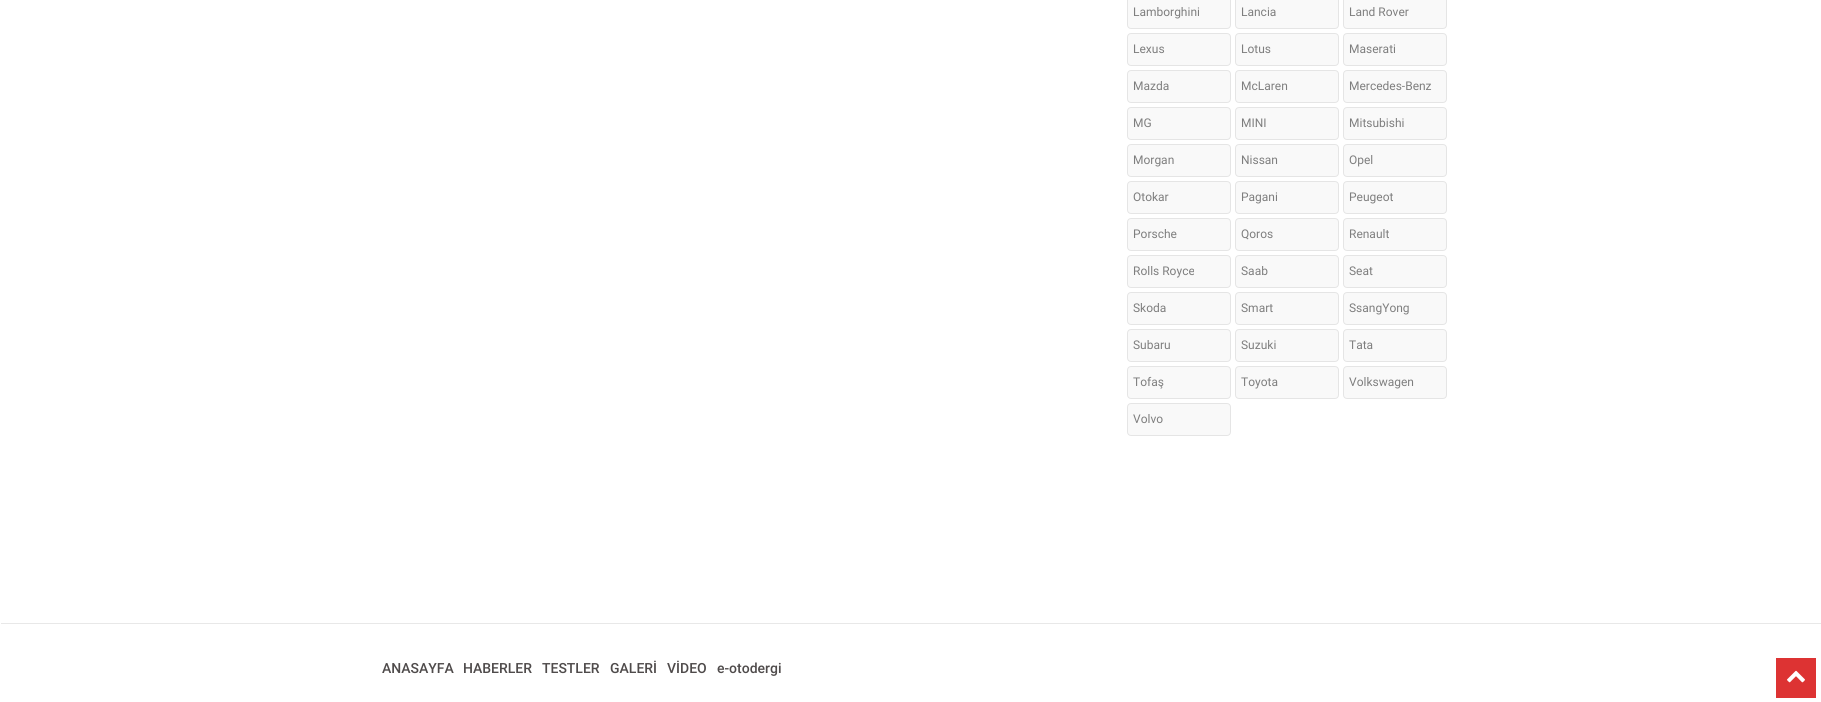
#include <cairo.h>
#include <math.h>
#include <stddef.h>

typedef struct { double x, y; const char *s; } line_t;

static void ink(cairo_t *ctx, unsigned color) {
    cairo_set_source_rgb(ctx, (color >> 16) / 255.0, (color >> 8 & 255) / 255.0, (color & 255) / 255.0);
}

static void round_path(cairo_t *ctx, double x, double y, double w, double h, double r) {
    cairo_new_sub_path(ctx);
    cairo_arc(ctx, x + w - r, y + h - r, r, 0, M_PI / 2);
    cairo_arc(ctx, x + r, y + h - r, r, M_PI / 2, M_PI);
    cairo_arc(ctx, x + r, y + r, r, M_PI, 1.5 * M_PI);
    cairo_arc(ctx, x + w - r, y + r, r, 1.5 * M_PI, 2 * M_PI);
    cairo_close_path(ctx);
}

static void paste(cairo_t *ctx, const char *path, double x, double y, double w, double h) {
    cairo_surface_t *image = cairo_image_surface_create_from_png(path);
    cairo_save(ctx);
    cairo_set_source_surface(ctx, image, x, y);
    cairo_rectangle(ctx, x, y, w, h);
    cairo_fill(ctx);
    cairo_restore(ctx);
    cairo_surface_destroy(image);
}

int main(void) {
    cairo_surface_t *surface = cairo_image_surface_create(CAIRO_FORMAT_RGB24, 1821, 702);
    cairo_t *ctx = cairo_create(surface);
    cairo_font_options_t *options = cairo_font_options_create();
    cairo_font_options_set_hint_metrics(options, CAIRO_HINT_METRICS_OFF);
    cairo_font_options_set_hint_style(options, CAIRO_HINT_STYLE_NONE);
    cairo_set_font_options(ctx, options);
    cairo_set_miter_limit(ctx, 4);
    ink(ctx, 0xFFFFFF);
    cairo_paint(ctx);
    ink(ctx, 0xF9F9F9);
    round_path(ctx, 1127.5, -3.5, 103, 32, 3.5);
    cairo_fill_preserve(ctx);
    ink(ctx, 0xE5E5E5);
    cairo_set_line_width(ctx, 1);
    cairo_stroke(ctx);
    cairo_select_font_face(ctx, "Roboto", CAIRO_FONT_SLANT_NORMAL, CAIRO_FONT_WEIGHT_NORMAL);
    cairo_set_font_size(ctx, 12);
    ink(ctx, 0x7E7E7E);
    cairo_move_to(ctx, 1133, 16);
    cairo_show_text(ctx, "Lamborghini");
    ink(ctx, 0xF9F9F9);
    round_path(ctx, 1235.5, -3.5, 103, 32, 3.5);
    cairo_fill_preserve(ctx);
    ink(ctx, 0xE5E5E5);
    cairo_stroke(ctx);
    ink(ctx, 0x7E7E7E);
    cairo_move_to(ctx, 1241, 16);
    cairo_show_text(ctx, "Lancia");
    ink(ctx, 0xF9F9F9);
    round_path(ctx, 1343.5, -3.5, 103, 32, 3.5);
    cairo_fill_preserve(ctx);
    ink(ctx, 0xE5E5E5);
    cairo_stroke(ctx);
    ink(ctx, 0x7E7E7E);
    cairo_move_to(ctx, 1349, 16);
    cairo_show_text(ctx, "Land Rover");
    ink(ctx, 0xF9F9F9);
    round_path(ctx, 1127.5, 33.5, 103, 32, 3.5);
    cairo_fill_preserve(ctx);
    ink(ctx, 0xE5E5E5);
    cairo_stroke(ctx);
    ink(ctx, 0x7E7E7E);
    cairo_move_to(ctx, 1133, 53);
    cairo_show_text(ctx, "Lexus");
    ink(ctx, 0xF9F9F9);
    round_path(ctx, 1235.5, 33.5, 103, 32, 3.5);
    cairo_fill_preserve(ctx);
    ink(ctx, 0xE5E5E5);
    cairo_stroke(ctx);
    ink(ctx, 0x7E7E7E);
    cairo_move_to(ctx, 1241, 53);
    cairo_show_text(ctx, "Lotus");
    ink(ctx, 0xF9F9F9);
    round_path(ctx, 1343.5, 33.5, 103, 32, 3.5);
    cairo_fill_preserve(ctx);
    ink(ctx, 0xE5E5E5);
    cairo_stroke(ctx);
    ink(ctx, 0x7E7E7E);
    cairo_move_to(ctx, 1349, 53);
    cairo_show_text(ctx, "Maserati");
    ink(ctx, 0xF9F9F9);
    round_path(ctx, 1127.5, 70.5, 103, 32, 3.5);
    cairo_fill_preserve(ctx);
    ink(ctx, 0xE5E5E5);
    cairo_stroke(ctx);
    ink(ctx, 0x7E7E7E);
    cairo_move_to(ctx, 1133, 90);
    cairo_show_text(ctx, "Mazda");
    ink(ctx, 0xF9F9F9);
    round_path(ctx, 1235.5, 70.5, 103, 32, 3.5);
    cairo_fill_preserve(ctx);
    ink(ctx, 0xE5E5E5);
    cairo_stroke(ctx);
    ink(ctx, 0x7E7E7E);
    cairo_move_to(ctx, 1241, 90);
    cairo_show_text(ctx, "McLaren");
    ink(ctx, 0xF9F9F9);
    round_path(ctx, 1343.5, 70.5, 103, 32, 3.5);
    cairo_fill_preserve(ctx);
    ink(ctx, 0xE5E5E5);
    cairo_stroke(ctx);
    ink(ctx, 0x7E7E7E);
    cairo_move_to(ctx, 1349, 90);
    cairo_show_text(ctx, "Mercedes-Benz");
    ink(ctx, 0xF9F9F9);
    round_path(ctx, 1127.5, 107.5, 103, 32, 3.5);
    cairo_fill_preserve(ctx);
    ink(ctx, 0xE5E5E5);
    cairo_stroke(ctx);
    ink(ctx, 0x7E7E7E);
    cairo_move_to(ctx, 1133, 127);
    cairo_show_text(ctx, "MG");
    ink(ctx, 0xF9F9F9);
    round_path(ctx, 1235.5, 107.5, 103, 32, 3.5);
    cairo_fill_preserve(ctx);
    ink(ctx, 0xE5E5E5);
    cairo_stroke(ctx);
    ink(ctx, 0x7E7E7E);
    cairo_move_to(ctx, 1241, 127);
    cairo_show_text(ctx, "MINI");
    ink(ctx, 0xF9F9F9);
    round_path(ctx, 1343.5, 107.5, 103, 32, 3.5);
    cairo_fill_preserve(ctx);
    ink(ctx, 0xE5E5E5);
    cairo_stroke(ctx);
    ink(ctx, 0x7E7E7E);
    cairo_move_to(ctx, 1349, 127);
    cairo_show_text(ctx, "Mitsubishi");
    ink(ctx, 0xF9F9F9);
    round_path(ctx, 1127.5, 144.5, 103, 32, 3.5);
    cairo_fill_preserve(ctx);
    ink(ctx, 0xE5E5E5);
    cairo_stroke(ctx);
    ink(ctx, 0x7E7E7E);
    cairo_move_to(ctx, 1133, 164);
    cairo_show_text(ctx, "Morgan");
    ink(ctx, 0xF9F9F9);
    round_path(ctx, 1235.5, 144.5, 103, 32, 3.5);
    cairo_fill_preserve(ctx);
    ink(ctx, 0xE5E5E5);
    cairo_stroke(ctx);
    ink(ctx, 0x7E7E7E);
    cairo_move_to(ctx, 1241, 164);
    cairo_show_text(ctx, "Nissan");
    ink(ctx, 0xF9F9F9);
    round_path(ctx, 1343.5, 144.5, 103, 32, 3.5);
    cairo_fill_preserve(ctx);
    ink(ctx, 0xE5E5E5);
    cairo_stroke(ctx);
    ink(ctx, 0x7E7E7E);
    cairo_move_to(ctx, 1349, 164);
    cairo_show_text(ctx, "Opel");
    ink(ctx, 0xF9F9F9);
    round_path(ctx, 1127.5, 181.5, 103, 32, 3.5);
    cairo_fill_preserve(ctx);
    ink(ctx, 0xE5E5E5);
    cairo_stroke(ctx);
    ink(ctx, 0x7E7E7E);
    cairo_move_to(ctx, 1133, 201);
    cairo_show_text(ctx, "Otokar");
    ink(ctx, 0xF9F9F9);
    round_path(ctx, 1235.5, 181.5, 103, 32, 3.5);
    cairo_fill_preserve(ctx);
    ink(ctx, 0xE5E5E5);
    cairo_stroke(ctx);
    ink(ctx, 0x7E7E7E);
    cairo_move_to(ctx, 1241, 201);
    cairo_show_text(ctx, "Pagani");
    ink(ctx, 0xF9F9F9);
    round_path(ctx, 1343.5, 181.5, 103, 32, 3.5);
    cairo_fill_preserve(ctx);
    ink(ctx, 0xE5E5E5);
    cairo_stroke(ctx);
    ink(ctx, 0x7E7E7E);
    cairo_move_to(ctx, 1349, 201);
    cairo_show_text(ctx, "Peugeot");
    ink(ctx, 0xF9F9F9);
    round_path(ctx, 1127.5, 218.5, 103, 32, 3.5);
    cairo_fill_preserve(ctx);
    ink(ctx, 0xE5E5E5);
    cairo_stroke(ctx);
    ink(ctx, 0x7E7E7E);
    cairo_move_to(ctx, 1133, 238);
    cairo_show_text(ctx, "Porsche");
    ink(ctx, 0xF9F9F9);
    round_path(ctx, 1235.5, 218.5, 103, 32, 3.5);
    cairo_fill_preserve(ctx);
    ink(ctx, 0xE5E5E5);
    cairo_stroke(ctx);
    ink(ctx, 0x7E7E7E);
    cairo_move_to(ctx, 1241, 238);
    cairo_show_text(ctx, "Qoros");
    ink(ctx, 0xF9F9F9);
    round_path(ctx, 1343.5, 218.5, 103, 32, 3.5);
    cairo_fill_preserve(ctx);
    ink(ctx, 0xE5E5E5);
    cairo_stroke(ctx);
    ink(ctx, 0x7E7E7E);
    cairo_move_to(ctx, 1349, 238);
    cairo_show_text(ctx, "Renault");
    ink(ctx, 0xF9F9F9);
    round_path(ctx, 1127.5, 255.5, 103, 32, 3.5);
    cairo_fill_preserve(ctx);
    ink(ctx, 0xE5E5E5);
    cairo_stroke(ctx);
    ink(ctx, 0x7E7E7E);
    cairo_move_to(ctx, 1133, 275);
    cairo_show_text(ctx, "Rolls Royce");
    ink(ctx, 0xF9F9F9);
    round_path(ctx, 1235.5, 255.5, 103, 32, 3.5);
    cairo_fill_preserve(ctx);
    ink(ctx, 0xE5E5E5);
    cairo_stroke(ctx);
    ink(ctx, 0x7E7E7E);
    cairo_move_to(ctx, 1241, 275);
    cairo_show_text(ctx, "Saab");
    ink(ctx, 0xF9F9F9);
    round_path(ctx, 1343.5, 255.5, 103, 32, 3.5);
    cairo_fill_preserve(ctx);
    ink(ctx, 0xE5E5E5);
    cairo_stroke(ctx);
    ink(ctx, 0x7E7E7E);
    cairo_move_to(ctx, 1349, 275);
    cairo_show_text(ctx, "Seat");
    ink(ctx, 0xF9F9F9);
    round_path(ctx, 1127.5, 292.5, 103, 32, 3.5);
    cairo_fill_preserve(ctx);
    ink(ctx, 0xE5E5E5);
    cairo_stroke(ctx);
    ink(ctx, 0x7E7E7E);
    cairo_move_to(ctx, 1133, 312);
    cairo_show_text(ctx, "Skoda");
    ink(ctx, 0xF9F9F9);
    round_path(ctx, 1235.5, 292.5, 103, 32, 3.5);
    cairo_fill_preserve(ctx);
    ink(ctx, 0xE5E5E5);
    cairo_stroke(ctx);
    ink(ctx, 0x7E7E7E);
    cairo_move_to(ctx, 1241, 312);
    cairo_show_text(ctx, "Smart");
    ink(ctx, 0xF9F9F9);
    round_path(ctx, 1343.5, 292.5, 103, 32, 3.5);
    cairo_fill_preserve(ctx);
    ink(ctx, 0xE5E5E5);
    cairo_stroke(ctx);
    ink(ctx, 0x7E7E7E);
    cairo_move_to(ctx, 1349, 312);
    cairo_show_text(ctx, "SsangYong");
    ink(ctx, 0xF9F9F9);
    round_path(ctx, 1127.5, 329.5, 103, 32, 3.5);
    cairo_fill_preserve(ctx);
    ink(ctx, 0xE5E5E5);
    cairo_stroke(ctx);
    ink(ctx, 0x7E7E7E);
    cairo_move_to(ctx, 1133, 349);
    cairo_show_text(ctx, "Subaru");
    ink(ctx, 0xF9F9F9);
    round_path(ctx, 1235.5, 329.5, 103, 32, 3.5);
    cairo_fill_preserve(ctx);
    ink(ctx, 0xE5E5E5);
    cairo_stroke(ctx);
    ink(ctx, 0x7E7E7E);
    cairo_move_to(ctx, 1241, 349);
    cairo_show_text(ctx, "Suzuki");
    ink(ctx, 0xF9F9F9);
    round_path(ctx, 1343.5, 329.5, 103, 32, 3.5);
    cairo_fill_preserve(ctx);
    ink(ctx, 0xE5E5E5);
    cairo_stroke(ctx);
    ink(ctx, 0x7E7E7E);
    cairo_move_to(ctx, 1349, 349);
    cairo_show_text(ctx, "Tata");
    ink(ctx, 0xF9F9F9);
    round_path(ctx, 1127.5, 366.5, 103, 32, 3.5);
    cairo_fill_preserve(ctx);
    ink(ctx, 0xE5E5E5);
    cairo_stroke(ctx);
    ink(ctx, 0x7E7E7E);
    cairo_move_to(ctx, 1133, 386);
    cairo_show_text(ctx, "Tofaş");
    ink(ctx, 0xF9F9F9);
    round_path(ctx, 1235.5, 366.5, 103, 32, 3.5);
    cairo_fill_preserve(ctx);
    ink(ctx, 0xE5E5E5);
    cairo_stroke(ctx);
    ink(ctx, 0x7E7E7E);
    cairo_move_to(ctx, 1241, 386);
    cairo_show_text(ctx, "Toyota");
    ink(ctx, 0xF9F9F9);
    round_path(ctx, 1343.5, 366.5, 103, 32, 3.5);
    cairo_fill_preserve(ctx);
    ink(ctx, 0xE5E5E5);
    cairo_stroke(ctx);
    ink(ctx, 0x7E7E7E);
    cairo_move_to(ctx, 1349, 386);
    cairo_show_text(ctx, "Volkswagen");
    ink(ctx, 0xF9F9F9);
    round_path(ctx, 1127.5, 403.5, 103, 32, 3.5);
    cairo_fill_preserve(ctx);
    ink(ctx, 0xE5E5E5);
    cairo_stroke(ctx);
    ink(ctx, 0x7E7E7E);
    cairo_move_to(ctx, 1133, 423);
    cairo_show_text(ctx, "Volvo");
    ink(ctx, 0xE8E8E8);
    cairo_rectangle(ctx, 1, 623, 1820, 1);
    cairo_fill(ctx);
    cairo_select_font_face(ctx, "Roboto Medium", CAIRO_FONT_SLANT_NORMAL, CAIRO_FONT_WEIGHT_NORMAL);
    cairo_set_font_size(ctx, 14);
    ink(ctx, 0x4F4B4B);
    {
        static const line_t items[] = {
            {382, 673, "ANASAYFA"},
            {463, 673, "HABERLER"},
            {542, 673, "TESTLER"},
            {610, 673, "GALERİ"},
            {667, 673, "VİDEO"},
            {717, 673, "e-otodergi"},
        };
        for (size_t i = 0; i < sizeof items / sizeof *items; i++) {
            cairo_move_to(ctx, items[i].x, items[i].y);
            cairo_show_text(ctx, items[i].s);
        }
    }
    ink(ctx, 0xDD3333);
    cairo_rectangle(ctx, 1776, 658, 40, 40);
    cairo_fill(ctx);
    paste(ctx, "media/1.png", 1787, 670, 18, 13);
    cairo_surface_write_to_png(surface, "image.png");
    cairo_font_options_destroy(options);
    cairo_destroy(ctx);
    cairo_surface_destroy(surface);
    return 0;
}
